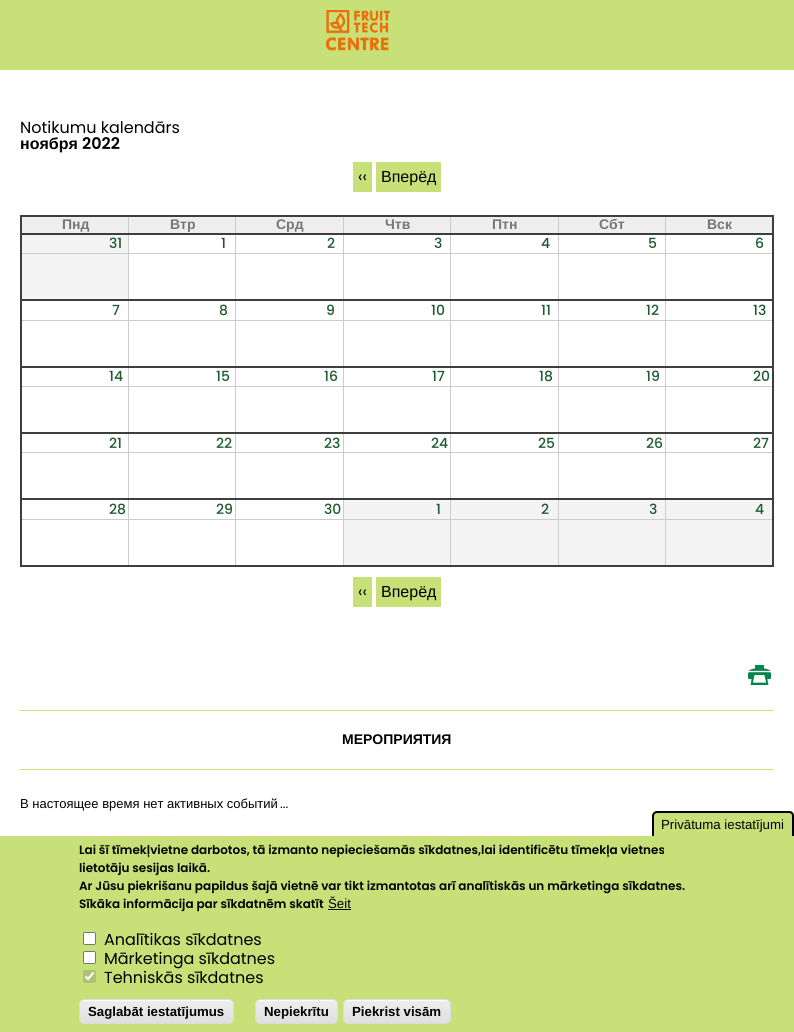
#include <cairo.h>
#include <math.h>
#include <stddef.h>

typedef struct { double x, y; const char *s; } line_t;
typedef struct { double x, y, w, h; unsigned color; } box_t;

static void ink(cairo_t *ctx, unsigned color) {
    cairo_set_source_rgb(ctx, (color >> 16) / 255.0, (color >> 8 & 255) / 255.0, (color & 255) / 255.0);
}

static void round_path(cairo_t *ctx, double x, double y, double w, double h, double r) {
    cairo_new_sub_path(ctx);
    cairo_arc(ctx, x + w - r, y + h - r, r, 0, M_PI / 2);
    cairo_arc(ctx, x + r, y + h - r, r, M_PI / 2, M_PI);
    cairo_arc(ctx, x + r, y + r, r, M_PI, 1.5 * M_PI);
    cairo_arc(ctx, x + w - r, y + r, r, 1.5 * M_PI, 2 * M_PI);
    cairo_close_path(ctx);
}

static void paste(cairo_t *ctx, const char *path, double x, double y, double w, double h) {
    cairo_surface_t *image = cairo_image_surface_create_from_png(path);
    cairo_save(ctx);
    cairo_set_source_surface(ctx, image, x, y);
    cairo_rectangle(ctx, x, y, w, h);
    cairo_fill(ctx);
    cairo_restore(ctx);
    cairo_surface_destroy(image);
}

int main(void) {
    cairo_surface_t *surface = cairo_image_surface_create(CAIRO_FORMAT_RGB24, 794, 1032);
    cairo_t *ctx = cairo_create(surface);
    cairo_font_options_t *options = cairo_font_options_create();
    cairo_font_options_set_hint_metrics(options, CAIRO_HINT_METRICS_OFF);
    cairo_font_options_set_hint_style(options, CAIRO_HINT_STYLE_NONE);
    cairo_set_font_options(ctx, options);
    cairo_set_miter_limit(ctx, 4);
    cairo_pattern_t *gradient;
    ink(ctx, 0xFFFFFF);
    cairo_paint(ctx);
    ink(ctx, 0xC7E078);
    cairo_rectangle(ctx, 0, 0, 794, 70);
    cairo_fill(ctx);
    paste(ctx, "media/1.png", 325, 10, 65, 41);
    cairo_select_font_face(ctx, "Poppins", CAIRO_FONT_SLANT_NORMAL, CAIRO_FONT_WEIGHT_NORMAL);
    cairo_set_font_size(ctx, 16);
    ink(ctx, 0x000000);
    cairo_move_to(ctx, 20, 133);
    cairo_show_text(ctx, "Notikumu kalendārs");
    cairo_select_font_face(ctx, "Liberation Sans", CAIRO_FONT_SLANT_NORMAL, CAIRO_FONT_WEIGHT_BOLD);
    cairo_move_to(ctx, 20, 149);
    cairo_show_text(ctx, "ноября");
    cairo_select_font_face(ctx, "Poppins SemiBold", CAIRO_FONT_SLANT_NORMAL, CAIRO_FONT_WEIGHT_NORMAL);
    cairo_move_to(ctx, 82, 149);
    cairo_show_text(ctx, "2022");
    ink(ctx, 0xC7E078);
    cairo_rectangle(ctx, 353, 162, 19, 30);
    cairo_fill(ctx);
    cairo_select_font_face(ctx, "Poppins", CAIRO_FONT_SLANT_NORMAL, CAIRO_FONT_WEIGHT_NORMAL);
    ink(ctx, 0x000000);
    cairo_move_to(ctx, 358, 182);
    cairo_show_text(ctx, "‹‹");
    ink(ctx, 0xC7E078);
    cairo_rectangle(ctx, 376, 162, 65, 30);
    cairo_fill(ctx);
    cairo_select_font_face(ctx, "Liberation Sans", CAIRO_FONT_SLANT_NORMAL, CAIRO_FONT_WEIGHT_NORMAL);
    ink(ctx, 0x000000);
    cairo_move_to(ctx, 381, 182);
    cairo_show_text(ctx, "Вперёд");
    {
        static const box_t items[] = {
            {21, 253, 753, 1, 0xCCCCCC},
            {21, 320, 753, 1, 0xCCCCCC},
            {21, 386, 753, 1, 0xCCCCCC},
            {21, 452, 753, 1, 0xCCCCCC},
            {21, 519, 753, 1, 0xCCCCCC},
            {128, 216, 1, 350, 0xCCCCCC},
            {235, 216, 1, 350, 0xCCCCCC},
            {343, 216, 1, 350, 0xCCCCCC},
            {450, 216, 1, 350, 0xCCCCCC},
            {558, 216, 1, 350, 0xCCCCCC},
            {665, 216, 1, 350, 0xCCCCCC},
            {20, 215, 754, 2, 0x3E3E3E},
            {772, 215, 2, 352, 0x3E3E3E},
            {20, 565, 754, 2, 0x3E3E3E},
            {20, 215, 2, 352, 0x3E3E3E},
            {22, 217, 106, 16, 0xEEEEEE},
        };
        for (size_t i = 0; i < sizeof items / sizeof *items; i++) {
            ink(ctx, items[i].color);
            cairo_rectangle(ctx, items[i].x, items[i].y, items[i].w, items[i].h);
            cairo_fill(ctx);
        }
    }
    cairo_select_font_face(ctx, "Liberation Sans", CAIRO_FONT_SLANT_NORMAL, CAIRO_FONT_WEIGHT_BOLD);
    cairo_set_font_size(ctx, 14);
    ink(ctx, 0x777777);
    cairo_move_to(ctx, 62, 229);
    cairo_show_text(ctx, "Пнд");
    ink(ctx, 0xEEEEEE);
    cairo_rectangle(ctx, 129, 217, 106, 16);
    cairo_fill(ctx);
    ink(ctx, 0x777777);
    cairo_move_to(ctx, 170, 229);
    cairo_show_text(ctx, "Втр");
    ink(ctx, 0xEEEEEE);
    cairo_rectangle(ctx, 236, 217, 107, 16);
    cairo_fill(ctx);
    ink(ctx, 0x777777);
    cairo_move_to(ctx, 276, 229);
    cairo_show_text(ctx, "Срд");
    ink(ctx, 0xEEEEEE);
    cairo_rectangle(ctx, 344, 217, 106, 16);
    cairo_fill(ctx);
    ink(ctx, 0x777777);
    cairo_move_to(ctx, 385, 229);
    cairo_show_text(ctx, "Чтв");
    ink(ctx, 0xEEEEEE);
    cairo_rectangle(ctx, 451, 217, 107, 16);
    cairo_fill(ctx);
    ink(ctx, 0x777777);
    cairo_move_to(ctx, 492, 229);
    cairo_show_text(ctx, "Птн");
    ink(ctx, 0xEEEEEE);
    cairo_rectangle(ctx, 559, 217, 106, 16);
    cairo_fill(ctx);
    ink(ctx, 0x777777);
    cairo_move_to(ctx, 599, 229);
    cairo_show_text(ctx, "Сбт");
    ink(ctx, 0xEEEEEE);
    cairo_rectangle(ctx, 666, 217, 106, 16);
    cairo_fill(ctx);
    ink(ctx, 0x777777);
    cairo_move_to(ctx, 707, 229);
    cairo_show_text(ctx, "Вск");
    {
        static const box_t items[] = {
            {344, 520, 106, 45, 0xF4F4F4},
            {451, 520, 107, 45, 0xF4F4F4},
            {559, 520, 106, 45, 0xF4F4F4},
            {666, 520, 106, 45, 0xF4F4F4},
            {20, 233, 754, 2, 0x3E3E3E},
            {22, 235, 106, 18, 0xF4F4F4},
        };
        for (size_t i = 0; i < sizeof items / sizeof *items; i++) {
            ink(ctx, items[i].color);
            cairo_rectangle(ctx, items[i].x, items[i].y, items[i].w, items[i].h);
            cairo_fill(ctx);
        }
    }
    cairo_select_font_face(ctx, "Poppins Medium", CAIRO_FONT_SLANT_NORMAL, CAIRO_FONT_WEIGHT_NORMAL);
    ink(ctx, 0x1C5B2F);
    {
        static const line_t items[] = {
            {109, 248, "31"},
            {221, 248, "1"},
            {327, 248, "2"},
            {434, 248, "3"},
            {541, 248, "4"},
            {648, 248, "5"},
            {755, 248, "6"},
        };
        for (size_t i = 0; i < sizeof items / sizeof *items; i++) {
            cairo_move_to(ctx, items[i].x, items[i].y);
            cairo_show_text(ctx, items[i].s);
        }
    }
    ink(ctx, 0xF4F4F4);
    cairo_rectangle(ctx, 22, 254, 106, 45);
    cairo_fill(ctx);
    ink(ctx, 0x3E3E3E);
    cairo_rectangle(ctx, 20, 299, 754, 2);
    cairo_fill(ctx);
    ink(ctx, 0x1C5B2F);
    {
        static const line_t items[] = {
            {112, 315, "7"},
            {219, 315, "8"},
            {326, 315, "9"},
            {431, 315, "10"},
            {541, 315, "11"},
            {646, 315, "12"},
            {753, 315, "13"},
        };
        for (size_t i = 0; i < sizeof items / sizeof *items; i++) {
            cairo_move_to(ctx, items[i].x, items[i].y);
            cairo_show_text(ctx, items[i].s);
        }
    }
    ink(ctx, 0x3E3E3E);
    cairo_rectangle(ctx, 20, 366, 754, 2);
    cairo_fill(ctx);
    ink(ctx, 0x1C5B2F);
    {
        static const line_t items[] = {
            {109, 381, "14"},
            {216, 381, "15"},
            {324, 381, "16"},
            {432, 381, "17"},
            {539, 381, "18"},
            {646, 381, "19"},
            {753, 381, "20"},
        };
        for (size_t i = 0; i < sizeof items / sizeof *items; i++) {
            cairo_move_to(ctx, items[i].x, items[i].y);
            cairo_show_text(ctx, items[i].s);
        }
    }
    ink(ctx, 0x3E3E3E);
    cairo_rectangle(ctx, 20, 432, 754, 2);
    cairo_fill(ctx);
    ink(ctx, 0x1C5B2F);
    {
        static const line_t items[] = {
            {109, 448, "21"},
            {216, 448, "22"},
            {324, 448, "23"},
            {431, 448, "24"},
            {538, 448, "25"},
            {646, 448, "26"},
            {753, 448, "27"},
        };
        for (size_t i = 0; i < sizeof items / sizeof *items; i++) {
            cairo_move_to(ctx, items[i].x, items[i].y);
            cairo_show_text(ctx, items[i].s);
        }
    }
    ink(ctx, 0x3E3E3E);
    cairo_rectangle(ctx, 20, 498, 754, 2);
    cairo_fill(ctx);
    ink(ctx, 0x1C5B2F);
    {
        static const line_t items[] = {
            {109, 514, "28"},
            {216, 514, "29"},
            {324, 514, "30"},
        };
        for (size_t i = 0; i < sizeof items / sizeof *items; i++) {
            cairo_move_to(ctx, items[i].x, items[i].y);
            cairo_show_text(ctx, items[i].s);
        }
    }
    ink(ctx, 0xF4F4F4);
    cairo_rectangle(ctx, 344, 500, 106, 19);
    cairo_fill(ctx);
    ink(ctx, 0x1C5B2F);
    cairo_move_to(ctx, 436, 514);
    cairo_show_text(ctx, "1");
    ink(ctx, 0xF4F4F4);
    cairo_rectangle(ctx, 451, 500, 107, 19);
    cairo_fill(ctx);
    ink(ctx, 0x1C5B2F);
    cairo_move_to(ctx, 541, 514);
    cairo_show_text(ctx, "2");
    ink(ctx, 0xF4F4F4);
    cairo_rectangle(ctx, 559, 500, 106, 19);
    cairo_fill(ctx);
    ink(ctx, 0x1C5B2F);
    cairo_move_to(ctx, 649, 514);
    cairo_show_text(ctx, "3");
    ink(ctx, 0xF4F4F4);
    cairo_rectangle(ctx, 666, 500, 106, 19);
    cairo_fill(ctx);
    ink(ctx, 0x1C5B2F);
    cairo_move_to(ctx, 755, 514);
    cairo_show_text(ctx, "4");
    ink(ctx, 0xC7E078);
    cairo_rectangle(ctx, 353, 577, 19, 30);
    cairo_fill(ctx);
    cairo_select_font_face(ctx, "Poppins", CAIRO_FONT_SLANT_NORMAL, CAIRO_FONT_WEIGHT_NORMAL);
    cairo_set_font_size(ctx, 16);
    ink(ctx, 0x000000);
    cairo_move_to(ctx, 358, 597);
    cairo_show_text(ctx, "‹‹");
    ink(ctx, 0xC7E078);
    cairo_rectangle(ctx, 376, 577, 65, 30);
    cairo_fill(ctx);
    cairo_select_font_face(ctx, "Liberation Sans", CAIRO_FONT_SLANT_NORMAL, CAIRO_FONT_WEIGHT_NORMAL);
    ink(ctx, 0x000000);
    cairo_move_to(ctx, 381, 597);
    cairo_show_text(ctx, "Вперёд");
    paste(ctx, "media/2.png", 748, 665, 23, 20);
    ink(ctx, 0xC7E078);
    cairo_rectangle(ctx, 20, 710, 754, 1);
    cairo_fill(ctx);
    cairo_rectangle(ctx, 20, 769, 754, 1);
    cairo_fill(ctx);
    cairo_select_font_face(ctx, "Liberation Sans", CAIRO_FONT_SLANT_NORMAL, CAIRO_FONT_WEIGHT_BOLD);
    cairo_set_font_size(ctx, 14);
    ink(ctx, 0x000000);
    cairo_move_to(ctx, 342, 744);
    cairo_show_text(ctx, "МЕРОПРИЯТИЯ");
    cairo_select_font_face(ctx, "Liberation Sans", CAIRO_FONT_SLANT_NORMAL, CAIRO_FONT_WEIGHT_NORMAL);
    cairo_set_font_size(ctx, 13);
    cairo_move_to(ctx, 20, 808);
    cairo_show_text(ctx, "В настоящее время нет активных событий");
    cairo_select_font_face(ctx, "Poppins", CAIRO_FONT_SLANT_NORMAL, CAIRO_FONT_WEIGHT_NORMAL);
    cairo_move_to(ctx, 280, 808);
    cairo_show_text(ctx, "...");
    ink(ctx, 0xC7E078);
    cairo_rectangle(ctx, 0, 836, 794, 196);
    cairo_fill(ctx);
    cairo_new_path(ctx);
    cairo_move_to(ctx, 657, 811);
    cairo_line_to(ctx, 789, 811);
    cairo_curve_to(ctx, 792, 811, 794, 813, 794, 816);
    cairo_line_to(ctx, 794, 836);
    cairo_line_to(ctx, 652, 836);
    cairo_line_to(ctx, 652, 816);
    cairo_curve_to(ctx, 652, 813, 654, 811, 657, 811);
    cairo_close_path(ctx);
    cairo_fill(ctx);
    ink(ctx, 0x000000);
    cairo_set_fill_rule(ctx, CAIRO_FILL_RULE_EVEN_ODD);
    cairo_new_path(ctx);
    cairo_move_to(ctx, 657, 811);
    cairo_line_to(ctx, 789, 811);
    cairo_curve_to(ctx, 792, 811, 794, 813, 794, 816);
    cairo_line_to(ctx, 794, 836);
    cairo_line_to(ctx, 652, 836);
    cairo_line_to(ctx, 652, 816);
    cairo_curve_to(ctx, 652, 813, 655, 811, 657, 811);
    cairo_close_path(ctx);
    cairo_move_to(ctx, 657, 813);
    cairo_line_to(ctx, 789, 813);
    cairo_curve_to(ctx, 791, 813, 792, 814, 792, 816);
    cairo_line_to(ctx, 792, 836);
    cairo_line_to(ctx, 654, 836);
    cairo_line_to(ctx, 654, 816);
    cairo_curve_to(ctx, 654, 814, 656, 813, 657, 813);
    cairo_close_path(ctx);
    cairo_fill(ctx);
    cairo_select_font_face(ctx, "Liberation Sans", CAIRO_FONT_SLANT_NORMAL, CAIRO_FONT_WEIGHT_NORMAL);
    cairo_set_font_size(ctx, 13.25);
    cairo_move_to(ctx, 661, 829);
    cairo_show_text(ctx, "Privātuma iestatījumi");
    cairo_select_font_face(ctx, "Poppins SemiBold", CAIRO_FONT_SLANT_NORMAL, CAIRO_FONT_WEIGHT_NORMAL);
    cairo_set_font_size(ctx, 12);
    {
        static const line_t items[] = {
            {79, 854, "Lai šī tīmekļvietne darbotos, tā izmanto nepieciešamās sīkdatnes,lai identificētu tīmekļa vietnes"},
            {79, 872, "lietotāju sesijas laikā."},
            {79, 890, "Ar Jūsu piekrišanu papildus šajā vietnē var tikt izmantotas arī analītiskās un mārketinga sīkdatnes."},
            {79, 908, "Sīkāka informācija par sīkdatnēm skatīt"},
        };
        for (size_t i = 0; i < sizeof items / sizeof *items; i++) {
            cairo_move_to(ctx, items[i].x, items[i].y);
            cairo_show_text(ctx, items[i].s);
        }
    }
    cairo_select_font_face(ctx, "Liberation Sans", CAIRO_FONT_SLANT_NORMAL, CAIRO_FONT_WEIGHT_NORMAL);
    cairo_set_font_size(ctx, 13.25);
    cairo_move_to(ctx, 328, 908);
    cairo_show_text(ctx, "Šeit");
    cairo_rectangle(ctx, 328, 909, 23, 1);
    cairo_fill(ctx);
    ink(ctx, 0xFFFFFF);
    round_path(ctx, 83.5, 932.5, 12, 12, 1.5);
    cairo_fill_preserve(ctx);
    ink(ctx, 0x767676);
    cairo_set_line_width(ctx, 1);
    cairo_stroke(ctx);
    cairo_select_font_face(ctx, "Poppins", CAIRO_FONT_SLANT_NORMAL, CAIRO_FONT_WEIGHT_NORMAL);
    cairo_set_font_size(ctx, 16);
    ink(ctx, 0x000000);
    cairo_move_to(ctx, 104, 945);
    cairo_show_text(ctx, "Analītikas sīkdatnes");
    ink(ctx, 0xFFFFFF);
    round_path(ctx, 83.5, 951.5, 12, 12, 1.5);
    cairo_fill_preserve(ctx);
    ink(ctx, 0x767676);
    cairo_stroke(ctx);
    ink(ctx, 0x000000);
    cairo_move_to(ctx, 104, 964);
    cairo_show_text(ctx, "Mārketinga sīkdatnes");
    ink(ctx, 0xAFC077);
    round_path(ctx, 83, 970, 13, 13, 2);
    cairo_fill(ctx);
    cairo_new_path(ctx);
    cairo_move_to(ctx, 85.5, 976.5);
    cairo_line_to(ctx, 88, 979);
    cairo_line_to(ctx, 93.5, 972.5);
    ink(ctx, 0xFFFFFF);
    cairo_set_line_width(ctx, 2.1);
    cairo_stroke(ctx);
    ink(ctx, 0x000000);
    cairo_move_to(ctx, 104, 983);
    cairo_show_text(ctx, "Tehniskās sīkdatnes");
    cairo_save(ctx);
    cairo_set_fill_rule(ctx, CAIRO_FILL_RULE_WINDING);
    round_path(ctx, 79, 999, 155, 25, 6);
    cairo_clip(ctx);
    gradient = cairo_pattern_create_linear(157, 1000, 157, 1023);
    cairo_pattern_add_color_stop_rgba(gradient, 0.05, 0.929, 0.929, 0.929, 1);
    cairo_pattern_add_color_stop_rgba(gradient, 1, 0.875, 0.875, 0.875, 1);
    cairo_set_source(ctx, gradient);
    cairo_pattern_destroy(gradient);
    cairo_rectangle(ctx, 79, 1000, 155, 23);
    cairo_fill(ctx);
    cairo_restore(ctx);
    ink(ctx, 0xFFFFFF);
    cairo_set_fill_rule(ctx, CAIRO_FILL_RULE_WINDING);
    cairo_new_path(ctx);
    cairo_move_to(ctx, 85, 1001);
    cairo_line_to(ctx, 228, 1001);
    cairo_curve_to(ctx, 231, 1001, 233, 1003, 233, 1006);
    cairo_line_to(ctx, 233, 1005);
    cairo_curve_to(ctx, 233, 1002, 231, 1000, 228, 1000);
    cairo_line_to(ctx, 85, 1000);
    cairo_curve_to(ctx, 82, 1000, 80, 1002, 80, 1005);
    cairo_line_to(ctx, 80, 1006);
    cairo_curve_to(ctx, 80, 1003, 82, 1001, 85, 1001);
    cairo_close_path(ctx);
    cairo_fill(ctx);
    round_path(ctx, 79.5, 999.5, 154, 24, 5.5);
    ink(ctx, 0xDCDCDC);
    cairo_set_line_width(ctx, 1);
    cairo_stroke(ctx);
    cairo_select_font_face(ctx, "Liberation Sans", CAIRO_FONT_SLANT_NORMAL, CAIRO_FONT_WEIGHT_BOLD);
    cairo_set_font_size(ctx, 13.25);
    ink(ctx, 0x000000);
    cairo_move_to(ctx, 88, 1016);
    cairo_show_text(ctx, "Saglabāt iestatījumus");
    cairo_save(ctx);
    round_path(ctx, 255, 999, 83, 25, 6);
    cairo_clip(ctx);
    gradient = cairo_pattern_create_linear(297, 1000, 297, 1023);
    cairo_pattern_add_color_stop_rgba(gradient, 0.05, 0.929, 0.929, 0.929, 1);
    cairo_pattern_add_color_stop_rgba(gradient, 1, 0.875, 0.875, 0.875, 1);
    cairo_set_source(ctx, gradient);
    cairo_pattern_destroy(gradient);
    cairo_rectangle(ctx, 255, 1000, 83, 23);
    cairo_fill(ctx);
    cairo_restore(ctx);
    ink(ctx, 0xFFFFFF);
    cairo_new_path(ctx);
    cairo_move_to(ctx, 261, 1001);
    cairo_line_to(ctx, 332, 1001);
    cairo_curve_to(ctx, 335, 1001, 337, 1003, 337, 1006);
    cairo_curve_to(ctx, 337, 997, 326, 1000, 320, 1000);
    cairo_line_to(ctx, 273, 1000);
    cairo_curve_to(ctx, 267, 1000, 256, 997, 256, 1006);
    cairo_curve_to(ctx, 256, 1003, 258, 1001, 261, 1001);
    cairo_close_path(ctx);
    cairo_fill(ctx);
    round_path(ctx, 255.5, 999.5, 82, 24, 5.5);
    ink(ctx, 0xDCDCDC);
    cairo_stroke(ctx);
    ink(ctx, 0x000000);
    cairo_move_to(ctx, 264, 1016);
    cairo_show_text(ctx, "Nepiekrītu");
    cairo_save(ctx);
    round_path(ctx, 343, 999, 108, 25, 6);
    cairo_clip(ctx);
    gradient = cairo_pattern_create_linear(397, 1000, 397, 1023);
    cairo_pattern_add_color_stop_rgba(gradient, 0.05, 0.929, 0.929, 0.929, 1);
    cairo_pattern_add_color_stop_rgba(gradient, 1, 0.875, 0.875, 0.875, 1);
    cairo_set_source(ctx, gradient);
    cairo_pattern_destroy(gradient);
    cairo_rectangle(ctx, 343, 1000, 108, 23);
    cairo_fill(ctx);
    cairo_restore(ctx);
    ink(ctx, 0xFFFFFF);
    cairo_new_path(ctx);
    cairo_move_to(ctx, 349, 1001);
    cairo_line_to(ctx, 445, 1001);
    cairo_curve_to(ctx, 448, 1001, 450, 1003, 450, 1006);
    cairo_curve_to(ctx, 450, 996, 434, 1000, 429, 1000);
    cairo_line_to(ctx, 365, 1000);
    cairo_curve_to(ctx, 360, 1000, 344, 996, 344, 1006);
    cairo_curve_to(ctx, 344, 1003, 346, 1001, 349, 1001);
    cairo_close_path(ctx);
    cairo_fill(ctx);
    round_path(ctx, 343.5, 999.5, 107, 24, 5.5);
    ink(ctx, 0xDCDCDC);
    cairo_stroke(ctx);
    ink(ctx, 0x000000);
    cairo_move_to(ctx, 352, 1016);
    cairo_show_text(ctx, "Piekrist visām");
    cairo_surface_write_to_png(surface, "image.png");
    cairo_font_options_destroy(options);
    cairo_destroy(ctx);
    cairo_surface_destroy(surface);
    return 0;
}
